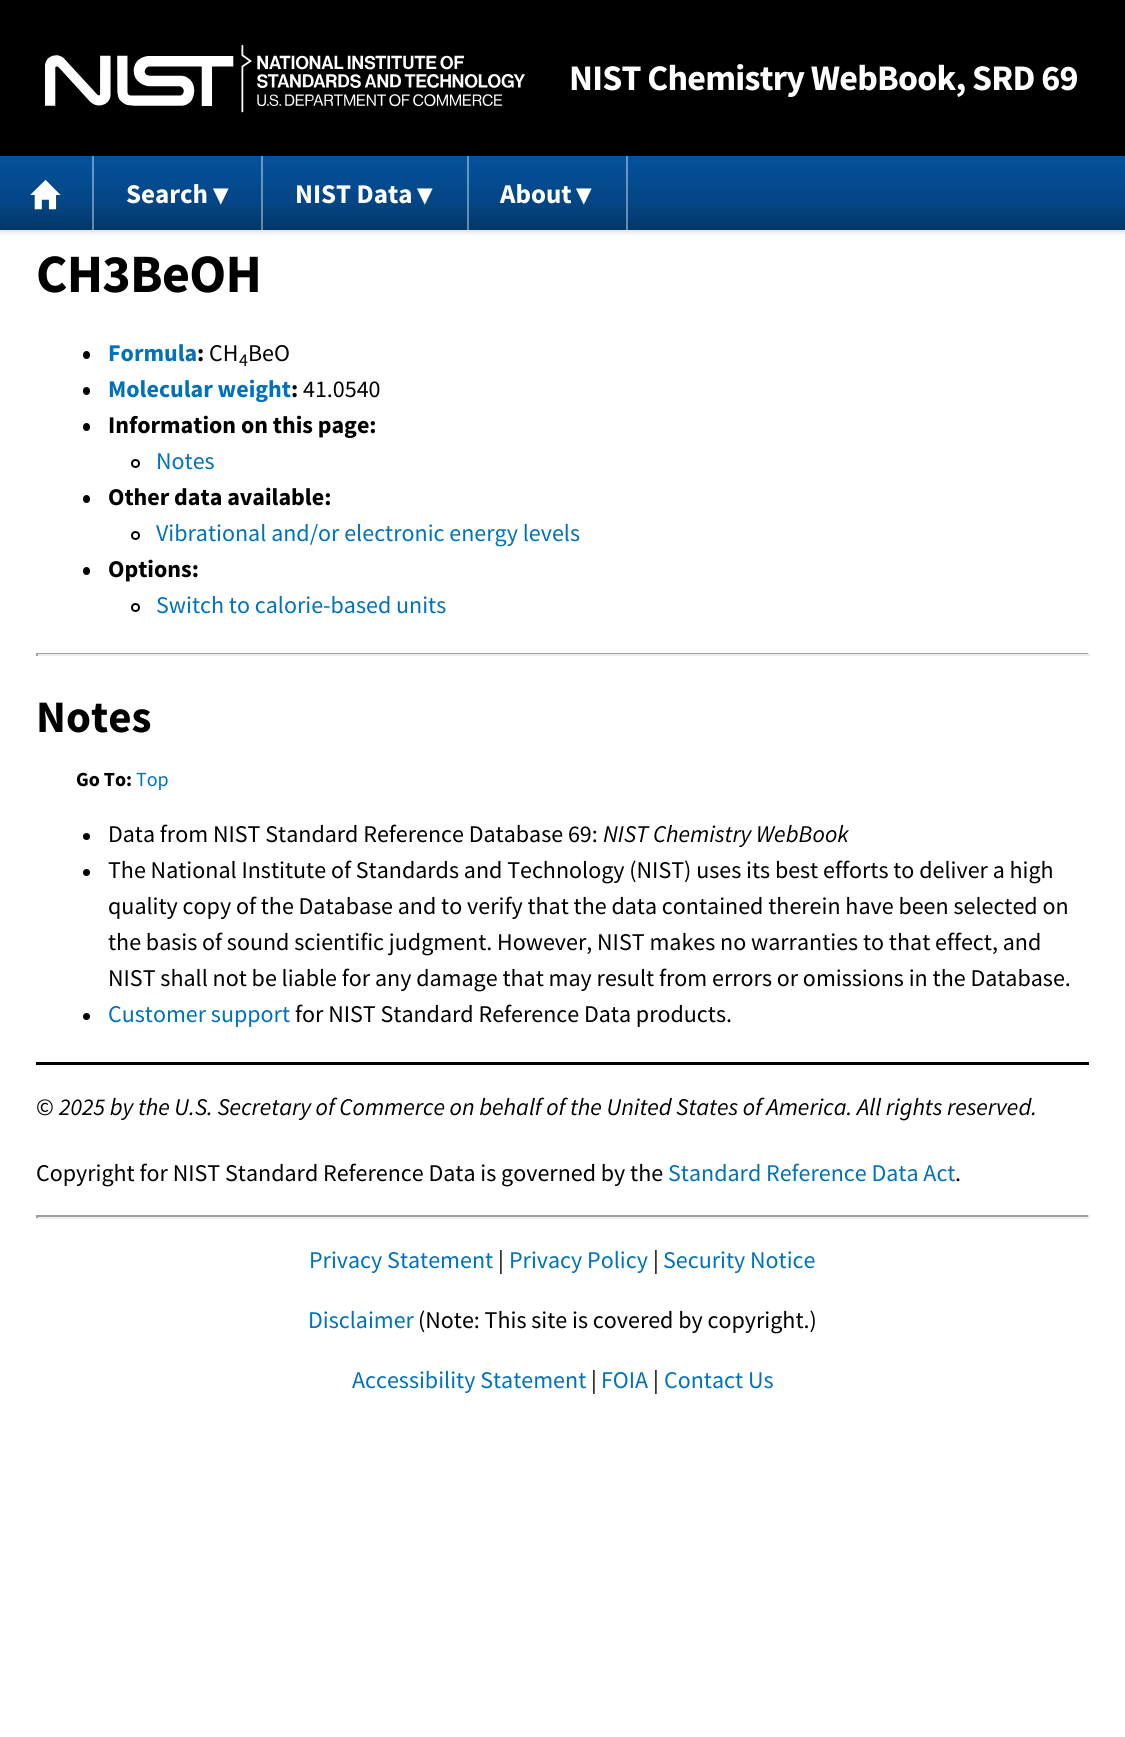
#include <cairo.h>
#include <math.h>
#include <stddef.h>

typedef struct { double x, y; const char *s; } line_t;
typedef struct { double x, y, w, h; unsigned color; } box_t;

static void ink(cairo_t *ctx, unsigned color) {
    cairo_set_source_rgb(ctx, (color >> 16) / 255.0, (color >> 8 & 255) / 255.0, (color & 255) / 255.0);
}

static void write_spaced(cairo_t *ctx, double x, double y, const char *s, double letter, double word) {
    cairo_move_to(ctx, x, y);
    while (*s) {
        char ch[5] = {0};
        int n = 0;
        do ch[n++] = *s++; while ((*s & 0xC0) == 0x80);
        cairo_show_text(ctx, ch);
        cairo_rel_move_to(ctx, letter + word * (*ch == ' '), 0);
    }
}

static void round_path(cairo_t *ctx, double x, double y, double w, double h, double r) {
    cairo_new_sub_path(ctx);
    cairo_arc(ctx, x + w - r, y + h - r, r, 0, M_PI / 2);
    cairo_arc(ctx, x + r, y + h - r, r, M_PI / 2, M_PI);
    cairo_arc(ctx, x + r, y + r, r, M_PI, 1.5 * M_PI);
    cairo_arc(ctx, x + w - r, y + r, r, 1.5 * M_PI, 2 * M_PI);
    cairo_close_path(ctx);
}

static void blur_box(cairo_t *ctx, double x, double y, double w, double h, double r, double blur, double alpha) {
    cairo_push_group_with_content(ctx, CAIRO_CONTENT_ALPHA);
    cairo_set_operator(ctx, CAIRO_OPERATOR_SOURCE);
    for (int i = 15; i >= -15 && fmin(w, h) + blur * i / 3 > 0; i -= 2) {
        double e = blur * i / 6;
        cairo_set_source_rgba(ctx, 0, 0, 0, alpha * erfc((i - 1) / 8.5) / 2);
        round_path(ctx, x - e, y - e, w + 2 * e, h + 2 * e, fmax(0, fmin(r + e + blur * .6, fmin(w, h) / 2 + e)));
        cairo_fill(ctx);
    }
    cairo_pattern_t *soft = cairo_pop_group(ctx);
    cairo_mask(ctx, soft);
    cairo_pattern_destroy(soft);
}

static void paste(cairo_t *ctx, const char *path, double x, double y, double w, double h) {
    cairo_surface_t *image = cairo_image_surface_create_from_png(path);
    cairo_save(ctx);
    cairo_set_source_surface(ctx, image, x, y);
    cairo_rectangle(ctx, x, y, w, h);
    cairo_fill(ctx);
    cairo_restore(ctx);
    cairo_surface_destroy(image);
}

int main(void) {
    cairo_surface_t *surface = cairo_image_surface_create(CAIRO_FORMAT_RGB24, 1125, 1737);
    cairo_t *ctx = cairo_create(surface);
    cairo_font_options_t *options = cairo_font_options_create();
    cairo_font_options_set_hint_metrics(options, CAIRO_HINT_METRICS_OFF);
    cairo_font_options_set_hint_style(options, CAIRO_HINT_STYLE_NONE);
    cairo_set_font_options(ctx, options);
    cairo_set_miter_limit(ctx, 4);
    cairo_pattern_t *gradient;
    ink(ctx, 0xFFFFFF);
    cairo_paint(ctx);
    ink(ctx, 0x000000);
    blur_box(ctx, 0, 159, 1125, 74, 0, 1.5, 0.1);
    ink(ctx, 0x000000);
    cairo_rectangle(ctx, 0, 0, 1125, 156);
    cairo_fill(ctx);
    paste(ctx, "media/1.png", 45, 45, 480, 68);
    cairo_select_font_face(ctx, "Source Sans Pro", CAIRO_FONT_SLANT_NORMAL, CAIRO_FONT_WEIGHT_BOLD);
    cairo_set_font_size(ctx, 36);
    ink(ctx, 0xFFFFFF);
    write_spaced(ctx, 569, 90, "NIST Chemistry WebBook, SRD 69", -0.75, 0);
    gradient = cairo_pattern_create_linear(563, 156, 563, 230);
    cairo_pattern_add_color_stop_rgba(gradient, 0, 0.016, 0.318, 0.608, 1);
    cairo_pattern_add_color_stop_rgba(gradient, 0.6, 0.016, 0.275, 0.529, 1);
    cairo_pattern_add_color_stop_rgba(gradient, 1, 0.012, 0.216, 0.412, 1);
    cairo_set_source(ctx, gradient);
    cairo_pattern_destroy(gradient);
    cairo_rectangle(ctx, 0, 156, 1125, 74);
    cairo_fill(ctx);
    cairo_set_source_rgba(ctx, 1, 1, 1, 0.4);
    cairo_rectangle(ctx, 92, 156, 2, 74);
    cairo_fill(ctx);
    paste(ctx, "media/2.png", 30, 180, 31, 30);
    cairo_rectangle(ctx, 261, 156, 2, 74);
    cairo_fill(ctx);
    cairo_set_font_size(ctx, 27);
    ink(ctx, 0xFFFFFF);
    cairo_move_to(ctx, 126, 203);
    cairo_show_text(ctx, "Search");
    cairo_set_font_size(ctx, 20);
    cairo_move_to(ctx, 212, 203);
    cairo_show_text(ctx, "▼");
    cairo_set_source_rgba(ctx, 1, 1, 1, 0.4);
    cairo_rectangle(ctx, 467, 156, 2, 74);
    cairo_fill(ctx);
    cairo_set_font_size(ctx, 27);
    ink(ctx, 0xFFFFFF);
    cairo_move_to(ctx, 295, 203);
    cairo_show_text(ctx, "NIST Data");
    cairo_set_font_size(ctx, 20);
    cairo_move_to(ctx, 416, 203);
    cairo_show_text(ctx, "▼");
    cairo_set_source_rgba(ctx, 1, 1, 1, 0.4);
    cairo_rectangle(ctx, 626, 156, 2, 74);
    cairo_fill(ctx);
    cairo_set_font_size(ctx, 27);
    ink(ctx, 0xFFFFFF);
    cairo_move_to(ctx, 500, 203);
    cairo_show_text(ctx, "About");
    cairo_set_font_size(ctx, 20);
    cairo_move_to(ctx, 575, 203);
    cairo_show_text(ctx, "▼");
    cairo_set_font_size(ctx, 54);
    ink(ctx, 0x000000);
    write_spaced(ctx, 36, 292, "CH3BeOH", -0.75, 0);
    round_path(ctx, 83, 351, 7, 8, 3.5);
    cairo_fill(ctx);
    cairo_set_font_size(ctx, 24);
    ink(ctx, 0x0071BC);
    cairo_move_to(ctx, 108, 361);
    cairo_show_text(ctx, "Formula");
    ink(ctx, 0x000000);
    cairo_move_to(ctx, 197, 361);
    cairo_show_text(ctx, ":");
    cairo_select_font_face(ctx, "Source Sans Pro", CAIRO_FONT_SLANT_NORMAL, CAIRO_FONT_WEIGHT_NORMAL);
    cairo_move_to(ctx, 209, 361);
    cairo_show_text(ctx, "CH");
    cairo_set_font_size(ctx, 18);
    cairo_move_to(ctx, 239, 366);
    cairo_show_text(ctx, "4");
    cairo_set_font_size(ctx, 24);
    cairo_move_to(ctx, 248, 361);
    cairo_show_text(ctx, "BeO");
    round_path(ctx, 83, 387, 7, 8, 3.5);
    cairo_fill(ctx);
    cairo_select_font_face(ctx, "Source Sans Pro", CAIRO_FONT_SLANT_NORMAL, CAIRO_FONT_WEIGHT_BOLD);
    ink(ctx, 0x0071BC);
    cairo_move_to(ctx, 108, 397);
    cairo_show_text(ctx, "Molecular weight");
    ink(ctx, 0x000000);
    cairo_move_to(ctx, 291, 397);
    cairo_show_text(ctx, ":");
    cairo_select_font_face(ctx, "Source Sans Pro", CAIRO_FONT_SLANT_NORMAL, CAIRO_FONT_WEIGHT_NORMAL);
    cairo_move_to(ctx, 303, 397);
    cairo_show_text(ctx, "41.0540");
    round_path(ctx, 83, 423, 7, 8, 3.5);
    cairo_fill(ctx);
    cairo_select_font_face(ctx, "Source Sans Pro", CAIRO_FONT_SLANT_NORMAL, CAIRO_FONT_WEIGHT_BOLD);
    cairo_move_to(ctx, 108, 433);
    cairo_show_text(ctx, "Information on this page:");
    cairo_new_path(ctx);
    cairo_arc(ctx, 135.5, 463.5, 3.5, 0, 2 * M_PI);
    cairo_stroke(ctx);
    cairo_select_font_face(ctx, "Source Sans Pro", CAIRO_FONT_SLANT_NORMAL, CAIRO_FONT_WEIGHT_NORMAL);
    ink(ctx, 0x0071BC);
    cairo_move_to(ctx, 156, 469);
    cairo_show_text(ctx, "Notes");
    ink(ctx, 0x000000);
    round_path(ctx, 83, 495, 7, 8, 3.5);
    cairo_fill(ctx);
    cairo_select_font_face(ctx, "Source Sans Pro", CAIRO_FONT_SLANT_NORMAL, CAIRO_FONT_WEIGHT_BOLD);
    cairo_move_to(ctx, 108, 505);
    cairo_show_text(ctx, "Other data available:");
    cairo_new_path(ctx);
    cairo_arc(ctx, 135.5, 535.5, 3.5, 0, 2 * M_PI);
    cairo_stroke(ctx);
    cairo_select_font_face(ctx, "Source Sans Pro", CAIRO_FONT_SLANT_NORMAL, CAIRO_FONT_WEIGHT_NORMAL);
    ink(ctx, 0x0071BC);
    cairo_move_to(ctx, 156, 541);
    cairo_show_text(ctx, "Vibrational and/or electronic energy levels");
    ink(ctx, 0x000000);
    round_path(ctx, 83, 567, 7, 8, 3.5);
    cairo_fill(ctx);
    cairo_select_font_face(ctx, "Source Sans Pro", CAIRO_FONT_SLANT_NORMAL, CAIRO_FONT_WEIGHT_BOLD);
    cairo_move_to(ctx, 108, 577);
    cairo_show_text(ctx, "Options:");
    cairo_new_path(ctx);
    cairo_arc(ctx, 135.5, 607.5, 3.5, 0, 2 * M_PI);
    cairo_stroke(ctx);
    cairo_select_font_face(ctx, "Source Sans Pro", CAIRO_FONT_SLANT_NORMAL, CAIRO_FONT_WEIGHT_NORMAL);
    ink(ctx, 0x0071BC);
    cairo_move_to(ctx, 156, 613);
    cairo_show_text(ctx, "Switch to calorie-based units");
    {
        static const box_t items[] = {
            {36, 653, 1053, 1, 0x9F9F9F},
            {1088, 653, 2, 3, 0xEEEEEE},
            {36, 654, 1053, 2, 0xEEEEEE},
            {36, 653, 2, 3, 0x9F9F9F},
        };
        for (size_t i = 0; i < sizeof items / sizeof *items; i++) {
            ink(ctx, items[i].color);
            cairo_rectangle(ctx, items[i].x, items[i].y, items[i].w, items[i].h);
            cairo_fill(ctx);
        }
    }
    cairo_select_font_face(ctx, "Source Sans Pro", CAIRO_FONT_SLANT_NORMAL, CAIRO_FONT_WEIGHT_BOLD);
    cairo_set_font_size(ctx, 45);
    ink(ctx, 0x000000);
    cairo_move_to(ctx, 36, 732);
    cairo_show_text(ctx, "Notes");
    cairo_set_font_size(ctx, 20);
    cairo_move_to(ctx, 76, 786);
    cairo_show_text(ctx, "Go To:");
    cairo_select_font_face(ctx, "Source Sans Pro", CAIRO_FONT_SLANT_NORMAL, CAIRO_FONT_WEIGHT_NORMAL);
    ink(ctx, 0x0071BC);
    cairo_move_to(ctx, 136, 786);
    cairo_show_text(ctx, "Top");
    ink(ctx, 0x000000);
    cairo_new_path(ctx);
    cairo_arc(ctx, 86.5, 836.5, 3.5, 0, 2 * M_PI);
    cairo_fill(ctx);
    cairo_set_font_size(ctx, 24);
    cairo_move_to(ctx, 108, 842);
    cairo_show_text(ctx, "Data from NIST Standard Reference Database 69:");
    cairo_select_font_face(ctx, "Source Sans Pro", CAIRO_FONT_SLANT_ITALIC, CAIRO_FONT_WEIGHT_NORMAL);
    cairo_move_to(ctx, 603, 842);
    cairo_show_text(ctx, "NIST Chemistry WebBook");
    cairo_new_path(ctx);
    cairo_arc(ctx, 86.5, 872.5, 3.5, 0, 2 * M_PI);
    cairo_fill(ctx);
    cairo_select_font_face(ctx, "Source Sans Pro", CAIRO_FONT_SLANT_NORMAL, CAIRO_FONT_WEIGHT_NORMAL);
    {
        static const line_t items[] = {
            {108, 878, "The National Institute of Standards and Technology (NIST) uses its best efforts to deliver a high"},
            {108, 914, "quality copy of the Database and to verify that the data contained therein have been selected on"},
            {108, 950, "the basis of sound scientific judgment. However, NIST makes no warranties to that effect, and"},
            {108, 986, "NIST shall not be liable for any damage that may result from errors or omissions in the Database."},
        };
        for (size_t i = 0; i < sizeof items / sizeof *items; i++) {
            cairo_move_to(ctx, items[i].x, items[i].y);
            cairo_show_text(ctx, items[i].s);
        }
    }
    cairo_new_path(ctx);
    cairo_arc(ctx, 86.5, 1016.5, 3.5, 0, 2 * M_PI);
    cairo_fill(ctx);
    ink(ctx, 0x0071BC);
    cairo_move_to(ctx, 108, 1022);
    cairo_show_text(ctx, "Customer support");
    ink(ctx, 0x000000);
    cairo_move_to(ctx, 295, 1022);
    cairo_show_text(ctx, "for NIST Standard Reference Data products.");
    cairo_rectangle(ctx, 36, 1062, 1053, 3);
    cairo_fill(ctx);
    cairo_move_to(ctx, 36, 1115);
    cairo_show_text(ctx, "©");
    cairo_select_font_face(ctx, "Source Sans Pro", CAIRO_FONT_SLANT_ITALIC, CAIRO_FONT_WEIGHT_NORMAL);
    cairo_move_to(ctx, 59, 1115);
    cairo_show_text(ctx, "2025 by the U.S. Secretary of Commerce on behalf of the United States of America. All rights reserved.");
    cairo_select_font_face(ctx, "Source Sans Pro", CAIRO_FONT_SLANT_NORMAL, CAIRO_FONT_WEIGHT_NORMAL);
    cairo_move_to(ctx, 36, 1181);
    cairo_show_text(ctx, "Copyright for NIST Standard Reference Data is governed by the");
    ink(ctx, 0x0071BC);
    cairo_move_to(ctx, 668, 1181);
    cairo_show_text(ctx, "Standard Reference Data Act");
    ink(ctx, 0x000000);
    cairo_move_to(ctx, 955, 1181);
    cairo_show_text(ctx, ".");
    {
        static const box_t items[] = {
            {36, 1215, 1053, 2, 0x9F9F9F},
            {1088, 1215, 2, 3, 0xEEEEEE},
            {36, 1217, 1053, 2, 0xEEEEEE},
            {36, 1215, 2, 3, 0x9F9F9F},
        };
        for (size_t i = 0; i < sizeof items / sizeof *items; i++) {
            ink(ctx, items[i].color);
            cairo_rectangle(ctx, items[i].x, items[i].y, items[i].w, items[i].h);
            cairo_fill(ctx);
        }
    }
    ink(ctx, 0x0071BC);
    cairo_move_to(ctx, 309, 1268);
    cairo_show_text(ctx, "Privacy Statement");
    ink(ctx, 0x000000);
    cairo_move_to(ctx, 498, 1268);
    cairo_show_text(ctx, "|");
    ink(ctx, 0x0071BC);
    cairo_move_to(ctx, 509, 1268);
    cairo_show_text(ctx, "Privacy Policy");
    ink(ctx, 0x000000);
    cairo_move_to(ctx, 653, 1268);
    cairo_show_text(ctx, "|");
    ink(ctx, 0x0071BC);
    cairo_move_to(ctx, 663, 1268);
    cairo_show_text(ctx, "Security Notice");
    cairo_move_to(ctx, 308, 1328);
    cairo_show_text(ctx, "Disclaimer");
    ink(ctx, 0x000000);
    cairo_move_to(ctx, 418, 1328);
    cairo_show_text(ctx, "(Note: This site is covered by copyright.)");
    ink(ctx, 0x0071BC);
    cairo_move_to(ctx, 352, 1388);
    cairo_show_text(ctx, "Accessibility Statement");
    ink(ctx, 0x000000);
    cairo_move_to(ctx, 591, 1388);
    cairo_show_text(ctx, "|");
    ink(ctx, 0x0071BC);
    cairo_move_to(ctx, 601, 1388);
    cairo_show_text(ctx, "FOIA");
    ink(ctx, 0x000000);
    cairo_move_to(ctx, 653, 1388);
    cairo_show_text(ctx, "|");
    ink(ctx, 0x0071BC);
    cairo_move_to(ctx, 664, 1388);
    cairo_show_text(ctx, "Contact Us");
    cairo_surface_write_to_png(surface, "image.png");
    cairo_font_options_destroy(options);
    cairo_destroy(ctx);
    cairo_surface_destroy(surface);
    return 0;
}
